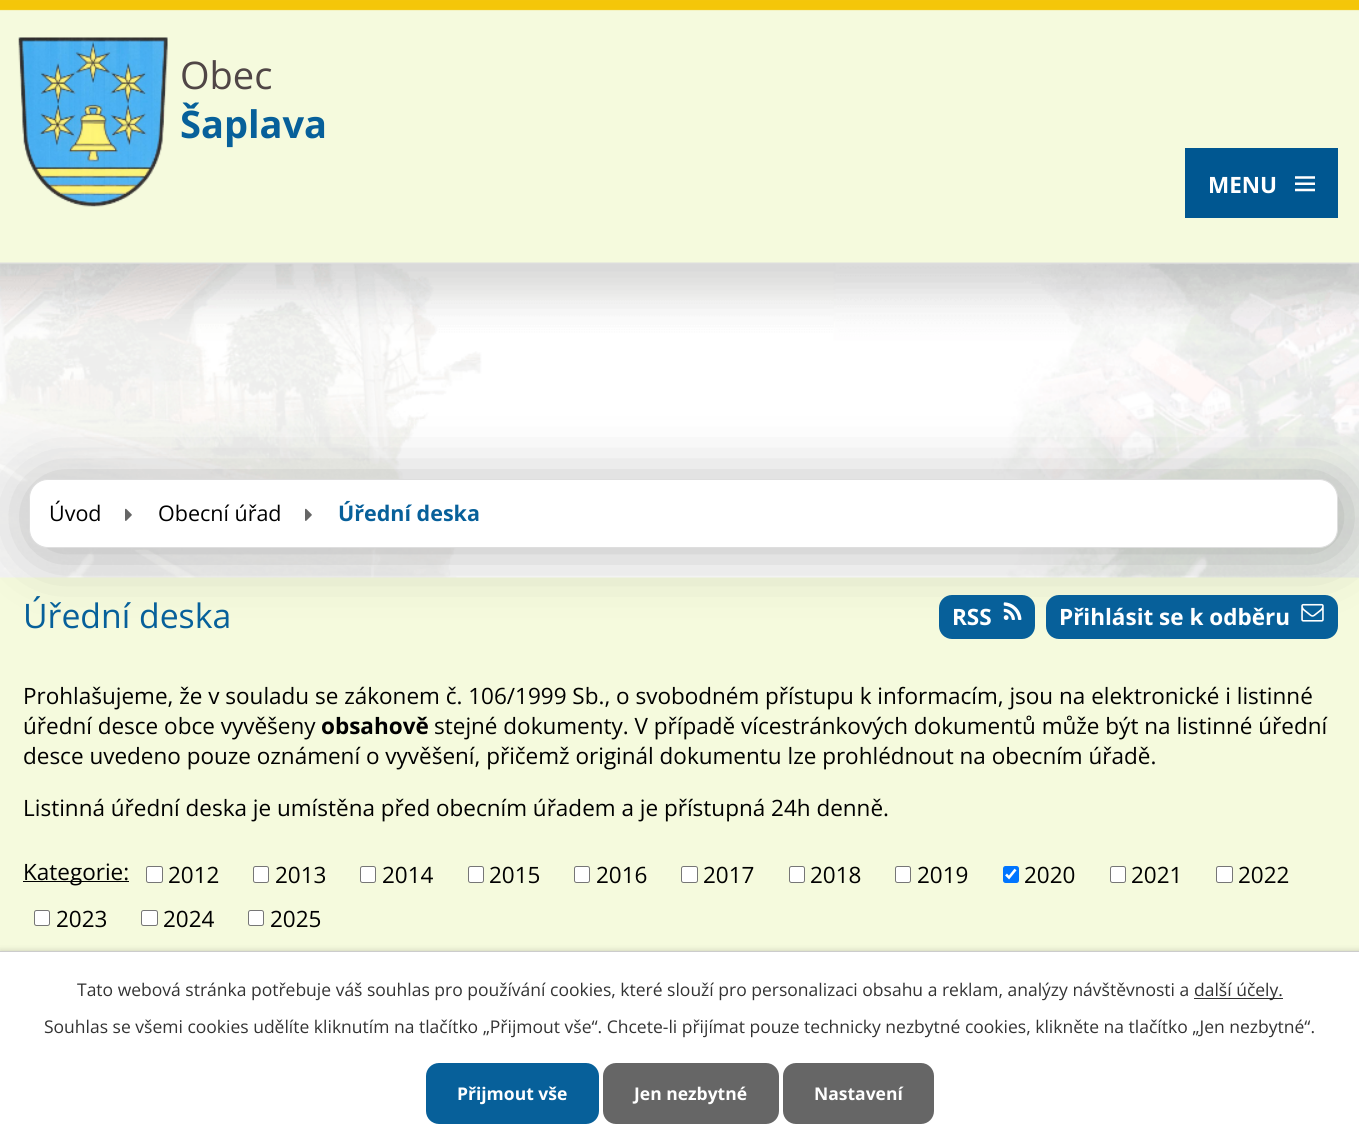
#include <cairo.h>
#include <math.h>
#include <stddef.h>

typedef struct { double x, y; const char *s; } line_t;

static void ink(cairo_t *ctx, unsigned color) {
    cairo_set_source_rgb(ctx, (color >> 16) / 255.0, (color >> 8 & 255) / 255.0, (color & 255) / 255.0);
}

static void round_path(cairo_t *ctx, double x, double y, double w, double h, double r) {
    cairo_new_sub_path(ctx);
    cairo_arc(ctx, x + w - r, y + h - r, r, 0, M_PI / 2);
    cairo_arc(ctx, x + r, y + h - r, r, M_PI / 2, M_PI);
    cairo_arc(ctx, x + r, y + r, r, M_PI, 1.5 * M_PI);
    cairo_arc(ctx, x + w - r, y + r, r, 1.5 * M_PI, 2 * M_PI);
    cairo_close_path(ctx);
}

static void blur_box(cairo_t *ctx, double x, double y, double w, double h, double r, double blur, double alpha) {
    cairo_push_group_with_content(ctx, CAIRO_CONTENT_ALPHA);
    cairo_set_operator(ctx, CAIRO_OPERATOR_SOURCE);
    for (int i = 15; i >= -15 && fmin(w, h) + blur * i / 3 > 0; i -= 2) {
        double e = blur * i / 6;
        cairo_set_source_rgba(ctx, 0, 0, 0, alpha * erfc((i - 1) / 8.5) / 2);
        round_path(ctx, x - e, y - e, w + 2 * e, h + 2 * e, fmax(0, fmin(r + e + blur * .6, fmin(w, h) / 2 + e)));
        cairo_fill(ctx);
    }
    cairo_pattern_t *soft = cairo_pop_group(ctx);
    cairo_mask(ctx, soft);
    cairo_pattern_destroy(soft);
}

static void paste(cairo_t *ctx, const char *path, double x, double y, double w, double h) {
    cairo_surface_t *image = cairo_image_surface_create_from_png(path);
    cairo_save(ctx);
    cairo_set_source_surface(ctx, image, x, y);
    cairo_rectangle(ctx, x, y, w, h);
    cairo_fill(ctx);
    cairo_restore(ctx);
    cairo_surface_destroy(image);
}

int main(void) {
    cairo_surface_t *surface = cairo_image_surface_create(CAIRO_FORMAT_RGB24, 1359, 1148);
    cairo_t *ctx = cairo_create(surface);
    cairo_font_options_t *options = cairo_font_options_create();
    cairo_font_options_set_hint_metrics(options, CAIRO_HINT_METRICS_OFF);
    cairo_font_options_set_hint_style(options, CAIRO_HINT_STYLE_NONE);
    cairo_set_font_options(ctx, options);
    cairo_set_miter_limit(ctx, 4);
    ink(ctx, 0xF5FADD);
    cairo_paint(ctx);
    paste(ctx, "media/1.png", 0, 0, 1359, 578);
    paste(ctx, "media/2.png", 18, 37, 150, 170);
    cairo_select_font_face(ctx, "Open Sans", CAIRO_FONT_SLANT_NORMAL, CAIRO_FONT_WEIGHT_NORMAL);
    cairo_set_font_size(ctx, 38);
    ink(ctx, 0x504646);
    cairo_move_to(ctx, 180, 89);
    cairo_show_text(ctx, "Obec");
    cairo_select_font_face(ctx, "Open Sans", CAIRO_FONT_SLANT_NORMAL, CAIRO_FONT_WEIGHT_BOLD);
    ink(ctx, 0x07609A);
    cairo_move_to(ctx, 180, 138);
    cairo_show_text(ctx, "Šaplava");
    ink(ctx, 0x005791);
    cairo_rectangle(ctx, 1185, 148, 153, 70);
    cairo_fill(ctx);
    cairo_set_font_size(ctx, 22.5);
    ink(ctx, 0xFFFFFF);
    cairo_move_to(ctx, 1208, 193);
    cairo_show_text(ctx, "MENU");
    paste(ctx, "media/3.png", 1295, 176, 20, 16);
    ink(ctx, 0x000000);
    blur_box(ctx, 35, 485, 1304, 64, 16, 32, 0.3);
    ink(ctx, 0xFFFFFF);
    round_path(ctx, 29.5, 479.5, 1308, 68, 18.5);
    cairo_fill_preserve(ctx);
    ink(ctx, 0xDEDEDE);
    cairo_set_line_width(ctx, 1);
    cairo_stroke(ctx);
    cairo_select_font_face(ctx, "Open Sans", CAIRO_FONT_SLANT_NORMAL, CAIRO_FONT_WEIGHT_NORMAL);
    cairo_set_font_size(ctx, 21.5);
    ink(ctx, 0x000000);
    cairo_move_to(ctx, 49, 521);
    cairo_show_text(ctx, "Úvod");
    paste(ctx, "media/4.png", 125, 508, 7, 13);
    cairo_move_to(ctx, 158, 521);
    cairo_show_text(ctx, "Obecní úřad");
    paste(ctx, "media/4.png", 305, 508, 7, 13);
    cairo_select_font_face(ctx, "Open Sans", CAIRO_FONT_SLANT_NORMAL, CAIRO_FONT_WEIGHT_BOLD);
    ink(ctx, 0x07609A);
    cairo_move_to(ctx, 338, 521);
    cairo_show_text(ctx, "Úřední deska");
    cairo_select_font_face(ctx, "Open Sans", CAIRO_FONT_SLANT_NORMAL, CAIRO_FONT_WEIGHT_NORMAL);
    cairo_set_font_size(ctx, 33.75);
    cairo_move_to(ctx, 23, 628);
    cairo_show_text(ctx, "Úřední deska");
    round_path(ctx, 939, 595, 96, 44, 13);
    cairo_fill(ctx);
    cairo_select_font_face(ctx, "Open Sans", CAIRO_FONT_SLANT_NORMAL, CAIRO_FONT_WEIGHT_BOLD);
    cairo_set_font_size(ctx, 22.5);
    ink(ctx, 0xFFFFFF);
    cairo_move_to(ctx, 952, 625);
    cairo_show_text(ctx, "RSS");
    paste(ctx, "media/5.png", 1003, 602, 19, 18);
    ink(ctx, 0x07609A);
    round_path(ctx, 1046, 595, 292, 44, 13);
    cairo_fill(ctx);
    ink(ctx, 0xFFFFFF);
    cairo_move_to(ctx, 1059, 625);
    cairo_show_text(ctx, "Přihlásit se k odběru");
    paste(ctx, "media/6.png", 1301, 603, 23, 19);
    cairo_select_font_face(ctx, "Open Sans", CAIRO_FONT_SLANT_NORMAL, CAIRO_FONT_WEIGHT_NORMAL);
    ink(ctx, 0x000000);
    cairo_move_to(ctx, 23, 704);
    cairo_show_text(ctx, "Prohlašujeme, že v souladu se zákonem č. 106/1999 Sb., o svobodném přístupu k informacím, jsou na elektronické i listinné");
    cairo_move_to(ctx, 23, 734);
    cairo_show_text(ctx, "úřední desce obce vyvěšeny");
    cairo_select_font_face(ctx, "Open Sans", CAIRO_FONT_SLANT_NORMAL, CAIRO_FONT_WEIGHT_BOLD);
    cairo_move_to(ctx, 321, 734);
    cairo_show_text(ctx, "obsahově");
    cairo_select_font_face(ctx, "Open Sans", CAIRO_FONT_SLANT_NORMAL, CAIRO_FONT_WEIGHT_NORMAL);
    {
        static const line_t items[] = {
            {434, 734, "stejné dokumenty. V případě vícestránkových dokumentů může být na listinné úřední"},
            {23, 764, "desce uvedeno pouze oznámení o vyvěšení, přičemž originál dokumentu lze prohlédnout na obecním úřadě."},
            {23, 816, "Listinná úřední deska je umístěna před obecním úřadem a je přístupná 24h denně."},
        };
        for (size_t i = 0; i < sizeof items / sizeof *items; i++) {
            cairo_move_to(ctx, items[i].x, items[i].y);
            cairo_show_text(ctx, items[i].s);
        }
    }
    cairo_rectangle(ctx, 23, 881, 106, 1);
    cairo_fill(ctx);
    cairo_move_to(ctx, 23, 880);
    cairo_show_text(ctx, "Kategorie:");
    ink(ctx, 0xFFFFFF);
    round_path(ctx, 146.5, 866.5, 16, 16, 2);
    cairo_fill_preserve(ctx);
    ink(ctx, 0x767676);
    cairo_stroke(ctx);
    ink(ctx, 0x000000);
    cairo_move_to(ctx, 168, 883);
    cairo_show_text(ctx, "2012");
    ink(ctx, 0xFFFFFF);
    round_path(ctx, 253.5, 866.5, 15, 16, 2);
    cairo_fill_preserve(ctx);
    ink(ctx, 0x767676);
    cairo_stroke(ctx);
    ink(ctx, 0x000000);
    cairo_move_to(ctx, 275, 883);
    cairo_show_text(ctx, "2013");
    ink(ctx, 0xFFFFFF);
    round_path(ctx, 360.5, 866.5, 15, 16, 2);
    cairo_fill_preserve(ctx);
    ink(ctx, 0x767676);
    cairo_stroke(ctx);
    ink(ctx, 0x000000);
    cairo_move_to(ctx, 382, 883);
    cairo_show_text(ctx, "2014");
    ink(ctx, 0xFFFFFF);
    round_path(ctx, 468.5, 866.5, 15, 16, 2);
    cairo_fill_preserve(ctx);
    ink(ctx, 0x767676);
    cairo_stroke(ctx);
    ink(ctx, 0x000000);
    cairo_move_to(ctx, 489, 883);
    cairo_show_text(ctx, "2015");
    ink(ctx, 0xFFFFFF);
    round_path(ctx, 574.5, 866.5, 15, 16, 2);
    cairo_fill_preserve(ctx);
    ink(ctx, 0x767676);
    cairo_stroke(ctx);
    ink(ctx, 0x000000);
    cairo_move_to(ctx, 596, 883);
    cairo_show_text(ctx, "2016");
    ink(ctx, 0xFFFFFF);
    round_path(ctx, 681.5, 866.5, 16, 16, 2);
    cairo_fill_preserve(ctx);
    ink(ctx, 0x767676);
    cairo_stroke(ctx);
    ink(ctx, 0x000000);
    cairo_move_to(ctx, 703, 883);
    cairo_show_text(ctx, "2017");
    ink(ctx, 0xFFFFFF);
    round_path(ctx, 789.5, 866.5, 15, 16, 2);
    cairo_fill_preserve(ctx);
    ink(ctx, 0x767676);
    cairo_stroke(ctx);
    ink(ctx, 0x000000);
    cairo_move_to(ctx, 810, 883);
    cairo_show_text(ctx, "2018");
    ink(ctx, 0xFFFFFF);
    round_path(ctx, 895.5, 866.5, 15, 16, 2);
    cairo_fill_preserve(ctx);
    ink(ctx, 0x767676);
    cairo_stroke(ctx);
    ink(ctx, 0x000000);
    cairo_move_to(ctx, 917, 883);
    cairo_show_text(ctx, "2019");
    ink(ctx, 0x0075FF);
    round_path(ctx, 1003, 866, 16, 17, 2.5);
    cairo_fill(ctx);
    cairo_new_path(ctx);
    cairo_move_to(ctx, 1006, 874.5);
    cairo_line_to(ctx, 1009, 877.5);
    cairo_line_to(ctx, 1015.5, 869.5);
    ink(ctx, 0xFFFFFF);
    cairo_set_line_width(ctx, 2.6);
    cairo_stroke(ctx);
    ink(ctx, 0x000000);
    cairo_move_to(ctx, 1024, 883);
    cairo_show_text(ctx, "2020");
    ink(ctx, 0xFFFFFF);
    round_path(ctx, 1110.5, 866.5, 15, 16, 2);
    cairo_fill_preserve(ctx);
    ink(ctx, 0x767676);
    cairo_set_line_width(ctx, 1);
    cairo_stroke(ctx);
    ink(ctx, 0x000000);
    cairo_move_to(ctx, 1131, 883);
    cairo_show_text(ctx, "2021");
    ink(ctx, 0xFFFFFF);
    round_path(ctx, 1216.5, 866.5, 16, 16, 2);
    cairo_fill_preserve(ctx);
    ink(ctx, 0x767676);
    cairo_stroke(ctx);
    ink(ctx, 0x000000);
    cairo_move_to(ctx, 1238, 883);
    cairo_show_text(ctx, "2022");
    ink(ctx, 0xFFFFFF);
    round_path(ctx, 34.5, 910.5, 15, 15, 2);
    cairo_fill_preserve(ctx);
    ink(ctx, 0x767676);
    cairo_stroke(ctx);
    ink(ctx, 0x000000);
    cairo_move_to(ctx, 56, 927);
    cairo_show_text(ctx, "2023");
    ink(ctx, 0xFFFFFF);
    round_path(ctx, 141.5, 910.5, 16, 15, 2);
    cairo_fill_preserve(ctx);
    ink(ctx, 0x767676);
    cairo_stroke(ctx);
    ink(ctx, 0x000000);
    cairo_move_to(ctx, 163, 927);
    cairo_show_text(ctx, "2024");
    ink(ctx, 0xFFFFFF);
    round_path(ctx, 248.5, 910.5, 15, 15, 2);
    cairo_fill_preserve(ctx);
    ink(ctx, 0x767676);
    cairo_stroke(ctx);
    ink(ctx, 0x000000);
    cairo_move_to(ctx, 270, 927);
    cairo_show_text(ctx, "2025");
    ink(ctx, 0x000000);
    blur_box(ctx, 0, 951, 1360, 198, 0, 3, 0.2);
    ink(ctx, 0xFFFFFF);
    cairo_rectangle(ctx, 0, 952, 1359, 196);
    cairo_fill(ctx);
    ink(ctx, 0xCCCCCC);
    cairo_rectangle(ctx, 0, 951, 1359, 1);
    cairo_fill(ctx);
    cairo_set_font_size(ctx, 17.5);
    ink(ctx, 0x333333);
    cairo_move_to(ctx, 77, 996);
    cairo_show_text(ctx, "Tato webová stránka potřebuje váš souhlas pro používání cookies, které slouží pro personalizaci obsahu a reklam, analýzy návštěvnosti a");
    cairo_rectangle(ctx, 1194, 998, 89, 1);
    cairo_fill(ctx);
    cairo_move_to(ctx, 1194, 996);
    cairo_show_text(ctx, "další účely.");
    cairo_move_to(ctx, 44, 1033);
    cairo_show_text(ctx, "Souhlas se všemi cookies udělíte kliknutím na tlačítko „Přijmout vše“. Chcete-li přijímat pouze technicky nezbytné cookies, klikněte na tlačítko „Jen nezbytné“.");
    ink(ctx, 0x07609A);
    round_path(ctx, 426, 1063, 173, 61, 13);
    cairo_fill(ctx);
    cairo_select_font_face(ctx, "Open Sans", CAIRO_FONT_SLANT_NORMAL, CAIRO_FONT_WEIGHT_BOLD);
    ink(ctx, 0xFFFFFF);
    cairo_move_to(ctx, 457, 1100);
    cairo_show_text(ctx, "Přijmout vše");
    ink(ctx, 0x666666);
    round_path(ctx, 603, 1063, 176, 61, 13);
    cairo_fill(ctx);
    ink(ctx, 0xFFFFFF);
    cairo_move_to(ctx, 634, 1100);
    cairo_show_text(ctx, "Jen nezbytné");
    ink(ctx, 0x666666);
    round_path(ctx, 783, 1063, 151, 61, 13);
    cairo_fill(ctx);
    ink(ctx, 0xFFFFFF);
    cairo_move_to(ctx, 814, 1100);
    cairo_show_text(ctx, "Nastavení");
    cairo_surface_write_to_png(surface, "image.png");
    cairo_font_options_destroy(options);
    cairo_destroy(ctx);
    cairo_surface_destroy(surface);
    return 0;
}
